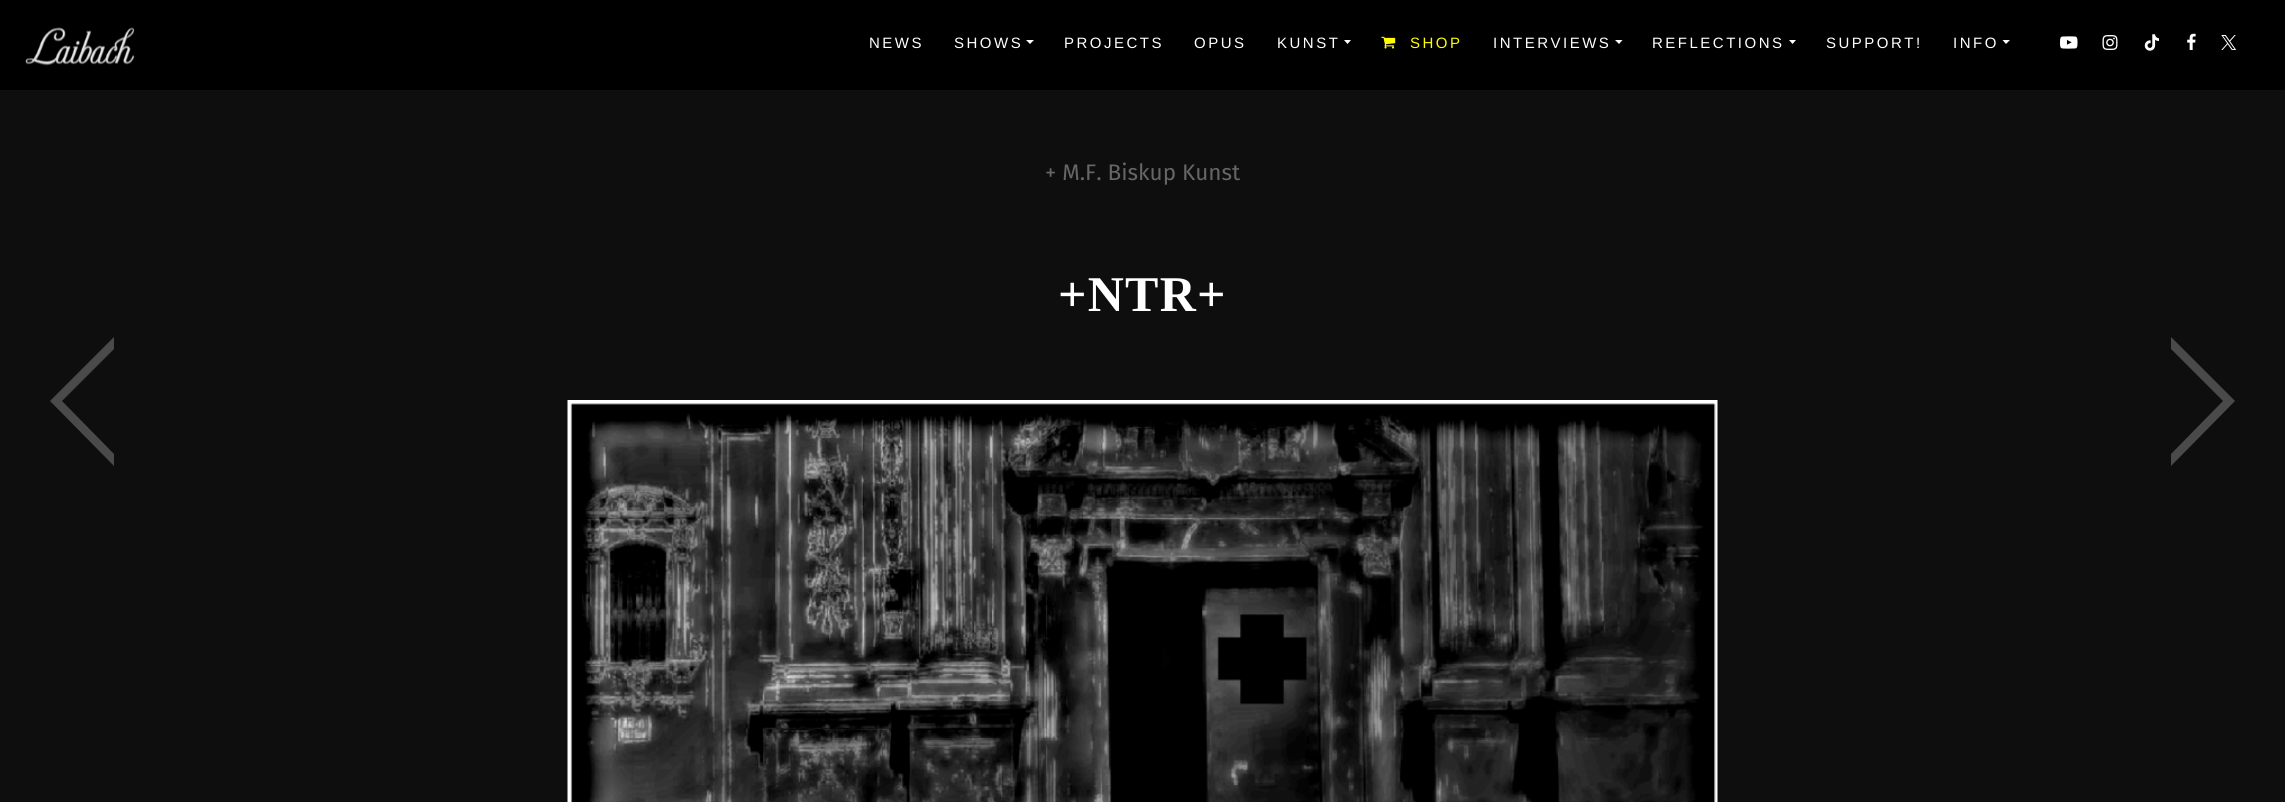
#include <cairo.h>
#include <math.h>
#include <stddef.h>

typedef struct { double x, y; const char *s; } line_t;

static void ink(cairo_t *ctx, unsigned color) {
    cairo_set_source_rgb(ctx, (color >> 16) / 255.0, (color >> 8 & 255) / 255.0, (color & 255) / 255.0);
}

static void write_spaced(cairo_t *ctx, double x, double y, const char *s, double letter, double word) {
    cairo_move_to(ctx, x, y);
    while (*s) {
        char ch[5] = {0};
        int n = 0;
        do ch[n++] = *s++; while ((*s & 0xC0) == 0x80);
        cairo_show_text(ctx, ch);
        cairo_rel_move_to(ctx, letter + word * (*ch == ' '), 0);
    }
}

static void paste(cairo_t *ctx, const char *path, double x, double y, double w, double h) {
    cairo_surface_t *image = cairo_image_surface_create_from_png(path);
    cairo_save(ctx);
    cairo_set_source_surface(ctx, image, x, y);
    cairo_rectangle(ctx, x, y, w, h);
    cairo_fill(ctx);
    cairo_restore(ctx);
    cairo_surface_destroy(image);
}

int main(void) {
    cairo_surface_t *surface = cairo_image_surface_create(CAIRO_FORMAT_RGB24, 2285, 802);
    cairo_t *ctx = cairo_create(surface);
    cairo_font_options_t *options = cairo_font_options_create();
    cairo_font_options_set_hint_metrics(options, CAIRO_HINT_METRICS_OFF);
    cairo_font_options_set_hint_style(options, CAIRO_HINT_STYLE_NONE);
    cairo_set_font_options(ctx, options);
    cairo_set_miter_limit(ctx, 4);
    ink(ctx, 0x0E0E0E);
    cairo_paint(ctx);
    ink(ctx, 0x000000);
    cairo_rectangle(ctx, 0, 0, 2285, 90);
    cairo_fill(ctx);
    paste(ctx, "media/1.png", 25, 27, 110, 39);
    cairo_select_font_face(ctx, "Liberation Sans", CAIRO_FONT_SLANT_NORMAL, CAIRO_FONT_WEIGHT_NORMAL);
    cairo_set_font_size(ctx, 15);
    ink(ctx, 0xFFFFFF);
    write_spaced(ctx, 869, 48, "NEWS", 2.5, 0);
    write_spaced(ctx, 954, 48, "SHOWS", 2.5, 0);
    cairo_new_path(ctx);
    cairo_move_to(ctx, 1026, 40);
    cairo_line_to(ctx, 1034, 40);
    cairo_line_to(ctx, 1030, 44);
    cairo_close_path(ctx);
    cairo_fill(ctx);
    {
        static const line_t items[] = {
            {1064, 48, "PROJECTS"},
            {1194, 48, "OPUS"},
            {1277, 48, "KUNST"},
        };
        for (size_t i = 0; i < sizeof items / sizeof *items; i++) {
            write_spaced(ctx, items[i].x, items[i].y, items[i].s, 2.5, 0);
        }
    }
    cairo_new_path(ctx);
    cairo_move_to(ctx, 1344, 40);
    cairo_line_to(ctx, 1351, 40);
    cairo_line_to(ctx, 1347.5, 44);
    cairo_close_path(ctx);
    cairo_fill(ctx);
    paste(ctx, "media/2.png", 1381, 36, 15, 13);
    ink(ctx, 0xFFFF00);
    write_spaced(ctx, 1410, 48, "SHOP", 2.5, 0);
    ink(ctx, 0xFFFFFF);
    write_spaced(ctx, 1493, 48, "INTERVIEWS", 2.5, 0);
    cairo_new_path(ctx);
    cairo_move_to(ctx, 1615, 40);
    cairo_line_to(ctx, 1622.5, 40);
    cairo_line_to(ctx, 1619, 44);
    cairo_close_path(ctx);
    cairo_fill(ctx);
    write_spaced(ctx, 1652, 48, "REFLECTIONS", 2.5, 0);
    cairo_new_path(ctx);
    cairo_move_to(ctx, 1789, 40);
    cairo_line_to(ctx, 1796, 40);
    cairo_line_to(ctx, 1792.5, 44);
    cairo_close_path(ctx);
    cairo_fill(ctx);
    write_spaced(ctx, 1826, 48, "SUPPORT!", 2.5, 0);
    write_spaced(ctx, 1953, 48, "INFO", 2.5, 0);
    cairo_new_path(ctx);
    cairo_move_to(ctx, 2002.5, 40);
    cairo_line_to(ctx, 2010, 40);
    cairo_line_to(ctx, 2006, 44);
    cairo_close_path(ctx);
    cairo_fill(ctx);
    paste(ctx, "media/3.png", 2060, 36, 18, 13);
    paste(ctx, "media/4.png", 2102, 35, 16, 15);
    paste(ctx, "media/5.png", 2144, 34, 15, 17);
    paste(ctx, "media/6.png", 2187, 33, 9, 17);
    paste(ctx, "media/7.png", 2221, 35, 16, 15);
    cairo_select_font_face(ctx, "Fira Sans", CAIRO_FONT_SLANT_NORMAL, CAIRO_FONT_WEIGHT_NORMAL);
    cairo_set_font_size(ctx, 22.5);
    ink(ctx, 0x666666);
    cairo_move_to(ctx, 1045, 180);
    cairo_show_text(ctx, "+ M.F. Biskup Kunst");
    cairo_select_font_face(ctx, "Liberation Serif", CAIRO_FONT_SLANT_NORMAL, CAIRO_FONT_WEIGHT_BOLD);
    cairo_set_font_size(ctx, 50);
    ink(ctx, 0xFFFFFF);
    write_spaced(ctx, 1058, 311, "+NTR+", 1.25, 0);
    paste(ctx, "media/8.png", 567, 400, 1151, 402);
    ink(ctx, 0x4A4A4A);
    cairo_new_path(ctx);
    cairo_move_to(ctx, 50, 401);
    cairo_line_to(ctx, 114, 337);
    cairo_line_to(ctx, 114, 349);
    cairo_line_to(ctx, 62, 401);
    cairo_close_path(ctx);
    cairo_fill(ctx);
    cairo_new_path(ctx);
    cairo_move_to(ctx, 114, 466);
    cairo_line_to(ctx, 50, 401);
    cairo_line_to(ctx, 62, 401);
    cairo_line_to(ctx, 114, 454);
    cairo_close_path(ctx);
    cairo_fill(ctx);
    cairo_new_path(ctx);
    cairo_move_to(ctx, 2235, 401);
    cairo_line_to(ctx, 2171, 466);
    cairo_line_to(ctx, 2171, 454);
    cairo_line_to(ctx, 2223, 401);
    cairo_close_path(ctx);
    cairo_fill(ctx);
    cairo_new_path(ctx);
    cairo_move_to(ctx, 2171, 337);
    cairo_line_to(ctx, 2235, 401);
    cairo_line_to(ctx, 2223, 401);
    cairo_line_to(ctx, 2171, 349);
    cairo_close_path(ctx);
    cairo_fill(ctx);
    cairo_surface_write_to_png(surface, "image.png");
    cairo_font_options_destroy(options);
    cairo_destroy(ctx);
    cairo_surface_destroy(surface);
    return 0;
}
